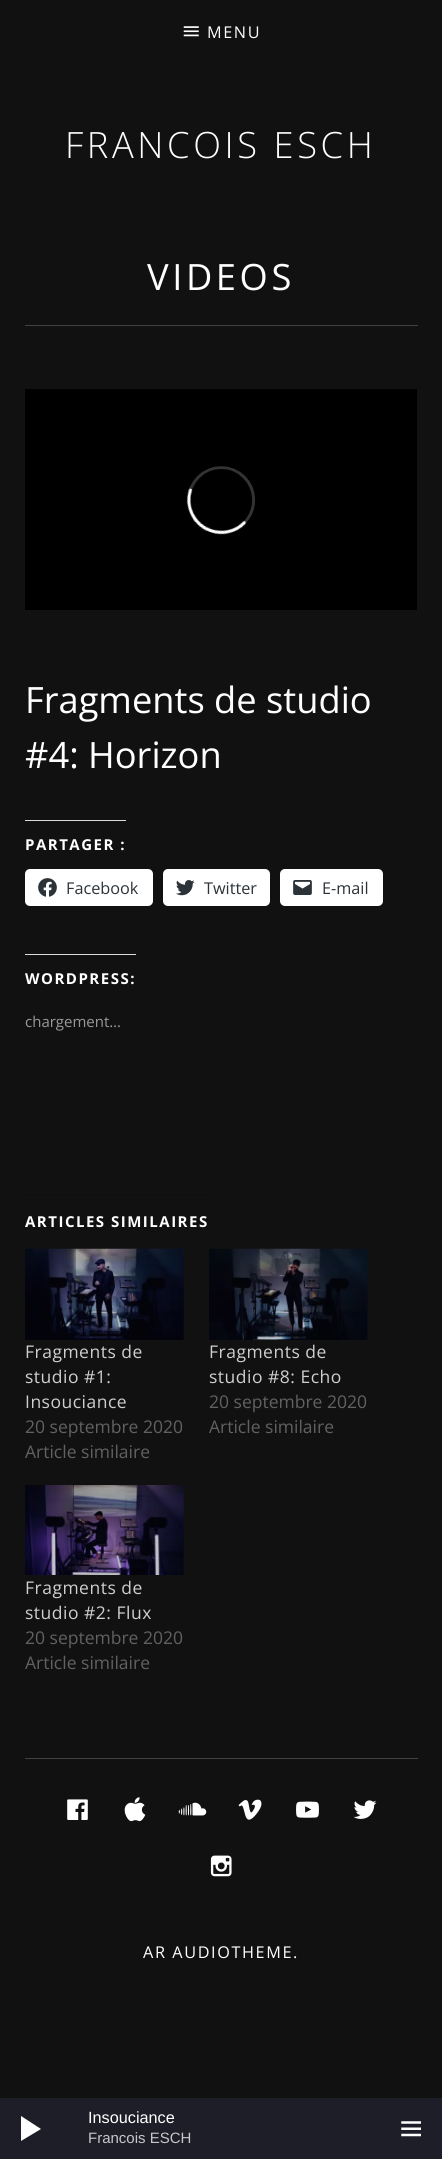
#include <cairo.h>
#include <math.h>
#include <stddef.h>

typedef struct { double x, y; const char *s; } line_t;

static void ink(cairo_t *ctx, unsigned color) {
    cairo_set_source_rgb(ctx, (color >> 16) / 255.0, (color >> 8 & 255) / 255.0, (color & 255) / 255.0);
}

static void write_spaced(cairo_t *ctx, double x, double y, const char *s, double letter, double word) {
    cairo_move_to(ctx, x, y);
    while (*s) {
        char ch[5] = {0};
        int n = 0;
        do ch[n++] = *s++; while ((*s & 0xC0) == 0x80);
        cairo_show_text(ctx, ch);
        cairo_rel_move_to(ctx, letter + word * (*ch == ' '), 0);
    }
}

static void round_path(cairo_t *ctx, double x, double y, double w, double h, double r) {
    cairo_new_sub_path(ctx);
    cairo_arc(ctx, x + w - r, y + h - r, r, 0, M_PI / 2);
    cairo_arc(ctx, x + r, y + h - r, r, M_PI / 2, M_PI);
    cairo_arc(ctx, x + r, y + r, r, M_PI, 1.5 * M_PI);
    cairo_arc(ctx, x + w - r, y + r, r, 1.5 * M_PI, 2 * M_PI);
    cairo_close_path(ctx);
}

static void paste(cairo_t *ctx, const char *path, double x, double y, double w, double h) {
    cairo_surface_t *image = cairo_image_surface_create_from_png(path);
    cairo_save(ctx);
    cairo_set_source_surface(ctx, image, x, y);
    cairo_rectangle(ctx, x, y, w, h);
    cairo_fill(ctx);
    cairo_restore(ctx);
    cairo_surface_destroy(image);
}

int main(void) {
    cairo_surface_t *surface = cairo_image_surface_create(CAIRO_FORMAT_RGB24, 442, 2159);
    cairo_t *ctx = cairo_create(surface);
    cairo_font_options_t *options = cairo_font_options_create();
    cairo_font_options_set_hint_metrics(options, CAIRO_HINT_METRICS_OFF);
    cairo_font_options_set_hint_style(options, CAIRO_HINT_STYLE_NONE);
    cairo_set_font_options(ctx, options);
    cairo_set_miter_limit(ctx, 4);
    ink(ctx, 0x111111);
    cairo_paint(ctx);
    paste(ctx, "media/1.png", 183, 26, 16, 11);
    cairo_select_font_face(ctx, "Open Sans", CAIRO_FONT_SLANT_NORMAL, CAIRO_FONT_WEIGHT_NORMAL);
    cairo_set_font_size(ctx, 16.25);
    ink(ctx, 0xFFFFFF);
    write_spaced(ctx, 207, 38, "MENU", 1.6, 0);
    cairo_select_font_face(ctx, "Open Sans Light", CAIRO_FONT_SLANT_NORMAL, CAIRO_FONT_WEIGHT_NORMAL);
    cairo_set_font_size(ctx, 36.25);
    write_spaced(ctx, 65, 158, "FRANCOIS ESCH", 3.6, 0);
    ink(ctx, 0x414141);
    cairo_rectangle(ctx, 25, 325, 393, 1);
    cairo_fill(ctx);
    cairo_select_font_face(ctx, "Open Sans", CAIRO_FONT_SLANT_NORMAL, CAIRO_FONT_WEIGHT_NORMAL);
    ink(ctx, 0xFFFFFF);
    write_spaced(ctx, 147, 290, "VIDEOS", 3.6, 0);
    paste(ctx, "media/2.png", 25, 389, 392, 221);
    cairo_move_to(ctx, 25, 713);
    cairo_show_text(ctx, "Fragments de studio");
    cairo_move_to(ctx, 25, 768);
    cairo_show_text(ctx, "#4: Horizon");
    ink(ctx, 0xDCDCDE);
    cairo_rectangle(ctx, 25, 820, 101, 1);
    cairo_fill(ctx);
    cairo_select_font_face(ctx, "Open Sans", CAIRO_FONT_SLANT_NORMAL, CAIRO_FONT_WEIGHT_BOLD);
    cairo_set_font_size(ctx, 15);
    ink(ctx, 0xFFFFFF);
    write_spaced(ctx, 25, 850, "PARTAGER :", 1.5, 0);
    round_path(ctx, 25, 869, 128, 37, 5);
    cairo_fill(ctx);
    paste(ctx, "media/3.png", 38, 878, 19, 19);
    cairo_select_font_face(ctx, "Open Sans", CAIRO_FONT_SLANT_NORMAL, CAIRO_FONT_WEIGHT_NORMAL);
    cairo_set_font_size(ctx, 16.25);
    ink(ctx, 0x2C3338);
    cairo_move_to(ctx, 66, 894);
    cairo_show_text(ctx, "Facebook");
    ink(ctx, 0xFFFFFF);
    round_path(ctx, 163, 869, 107, 37, 5);
    cairo_fill(ctx);
    paste(ctx, "media/4.png", 176, 880, 19, 16);
    ink(ctx, 0x2C3338);
    cairo_move_to(ctx, 204, 894);
    cairo_show_text(ctx, "Twitter");
    ink(ctx, 0xFFFFFF);
    round_path(ctx, 280, 869, 103, 37, 5);
    cairo_fill(ctx);
    paste(ctx, "media/5.png", 293, 880, 19, 15);
    ink(ctx, 0x2C3338);
    cairo_move_to(ctx, 322, 894);
    cairo_show_text(ctx, "E-mail");
    ink(ctx, 0xDCDCDE);
    cairo_rectangle(ctx, 25, 954, 111, 1);
    cairo_fill(ctx);
    cairo_select_font_face(ctx, "Open Sans", CAIRO_FONT_SLANT_NORMAL, CAIRO_FONT_WEIGHT_BOLD);
    cairo_set_font_size(ctx, 15);
    ink(ctx, 0xFFFFFF);
    write_spaced(ctx, 25, 984, "WORDPRESS:", 1.5, 0);
    cairo_select_font_face(ctx, "Open Sans", CAIRO_FONT_SLANT_NORMAL, CAIRO_FONT_WEIGHT_NORMAL);
    ink(ctx, 0x999999);
    cairo_move_to(ctx, 25, 1027);
    cairo_show_text(ctx, "chargement…");
    ink(ctx, 0x0E0E0E);
    cairo_rectangle(ctx, 25, 1194, 184, 1);
    cairo_fill(ctx);
    cairo_select_font_face(ctx, "Open Sans", CAIRO_FONT_SLANT_NORMAL, CAIRO_FONT_WEIGHT_BOLD);
    ink(ctx, 0xFFFFFF);
    write_spaced(ctx, 25, 1227, "ARTICLES SIMILAIRES", 1.5, 0);
    paste(ctx, "media/6.png", 25, 1248, 159, 92);
    cairo_select_font_face(ctx, "Open Sans", CAIRO_FONT_SLANT_NORMAL, CAIRO_FONT_WEIGHT_NORMAL);
    cairo_set_font_size(ctx, 17.5);
    ink(ctx, 0xCFCFCF);
    {
        static const line_t items[] = {
            {25, 1358, "Fragments de"},
            {25, 1383, "studio #1:"},
            {25, 1408, "Insouciance"},
        };
        for (size_t i = 0; i < sizeof items / sizeof *items; i++) {
            write_spaced(ctx, items[i].x, items[i].y, items[i].s, 0.5, 0);
        }
    }
    ink(ctx, 0x616161);
    cairo_move_to(ctx, 25, 1433);
    cairo_show_text(ctx, "20 septembre 2020");
    cairo_move_to(ctx, 25, 1458);
    cairo_show_text(ctx, "Article similaire");
    paste(ctx, "media/7.png", 209, 1248, 159, 92);
    ink(ctx, 0xCFCFCF);
    write_spaced(ctx, 209, 1358, "Fragments de", 0.5, 0);
    write_spaced(ctx, 209, 1383, "studio #8: Echo", 0.5, 0);
    ink(ctx, 0x616161);
    cairo_move_to(ctx, 209, 1408);
    cairo_show_text(ctx, "20 septembre 2020");
    cairo_move_to(ctx, 209, 1433);
    cairo_show_text(ctx, "Article similaire");
    paste(ctx, "media/8.png", 25, 1485, 159, 90);
    ink(ctx, 0xCFCFCF);
    write_spaced(ctx, 25, 1594, "Fragments de", 0.5, 0);
    write_spaced(ctx, 25, 1619, "studio #2: Flux", 0.5, 0);
    ink(ctx, 0x616161);
    cairo_move_to(ctx, 25, 1644);
    cairo_show_text(ctx, "20 septembre 2020");
    cairo_move_to(ctx, 25, 1669);
    cairo_show_text(ctx, "Article similaire");
    ink(ctx, 0x414141);
    cairo_rectangle(ctx, 25, 1758, 393, 1);
    cairo_fill(ctx);
    paste(ctx, "media/9.png", 67, 1799, 21, 21);
    paste(ctx, "media/10.png", 124, 1797, 22, 25);
    paste(ctx, "media/11.png", 178, 1802, 29, 14);
    paste(ctx, "media/12.png", 238, 1799, 24, 21);
    paste(ctx, "media/13.png", 296, 1801, 23, 17);
    paste(ctx, "media/14.png", 353, 1800, 24, 19);
    paste(ctx, "media/15.png", 210, 1855, 22, 22);
    cairo_set_font_size(ctx, 16.25);
    ink(ctx, 0xFFFFFF);
    write_spaced(ctx, 143, 1958, "AR AUDIOTHEME.", 1.6, 0);
    ink(ctx, 0x1E1E28);
    cairo_rectangle(ctx, 0, 2098, 442, 61);
    cairo_fill(ctx);
    cairo_select_font_face(ctx, "Liberation Sans", CAIRO_FONT_SLANT_NORMAL, CAIRO_FONT_WEIGHT_NORMAL);
    ink(ctx, 0xFFFFFF);
    cairo_move_to(ctx, 88, 2123);
    cairo_show_text(ctx, "Insouciance");
    cairo_set_font_size(ctx, 15);
    ink(ctx, 0xC7C7C9);
    cairo_move_to(ctx, 88, 2143);
    cairo_show_text(ctx, "Francois ESCH");
    ink(ctx, 0xFFFFFF);
    cairo_new_path(ctx);
    cairo_move_to(ctx, 41, 2129);
    cairo_line_to(ctx, 21, 2141);
    cairo_line_to(ctx, 21, 2116);
    cairo_close_path(ctx);
    cairo_fill(ctx);
    paste(ctx, "media/16.png", 401, 2121, 20, 16);
    cairo_surface_write_to_png(surface, "image.png");
    cairo_font_options_destroy(options);
    cairo_destroy(ctx);
    cairo_surface_destroy(surface);
    return 0;
}
